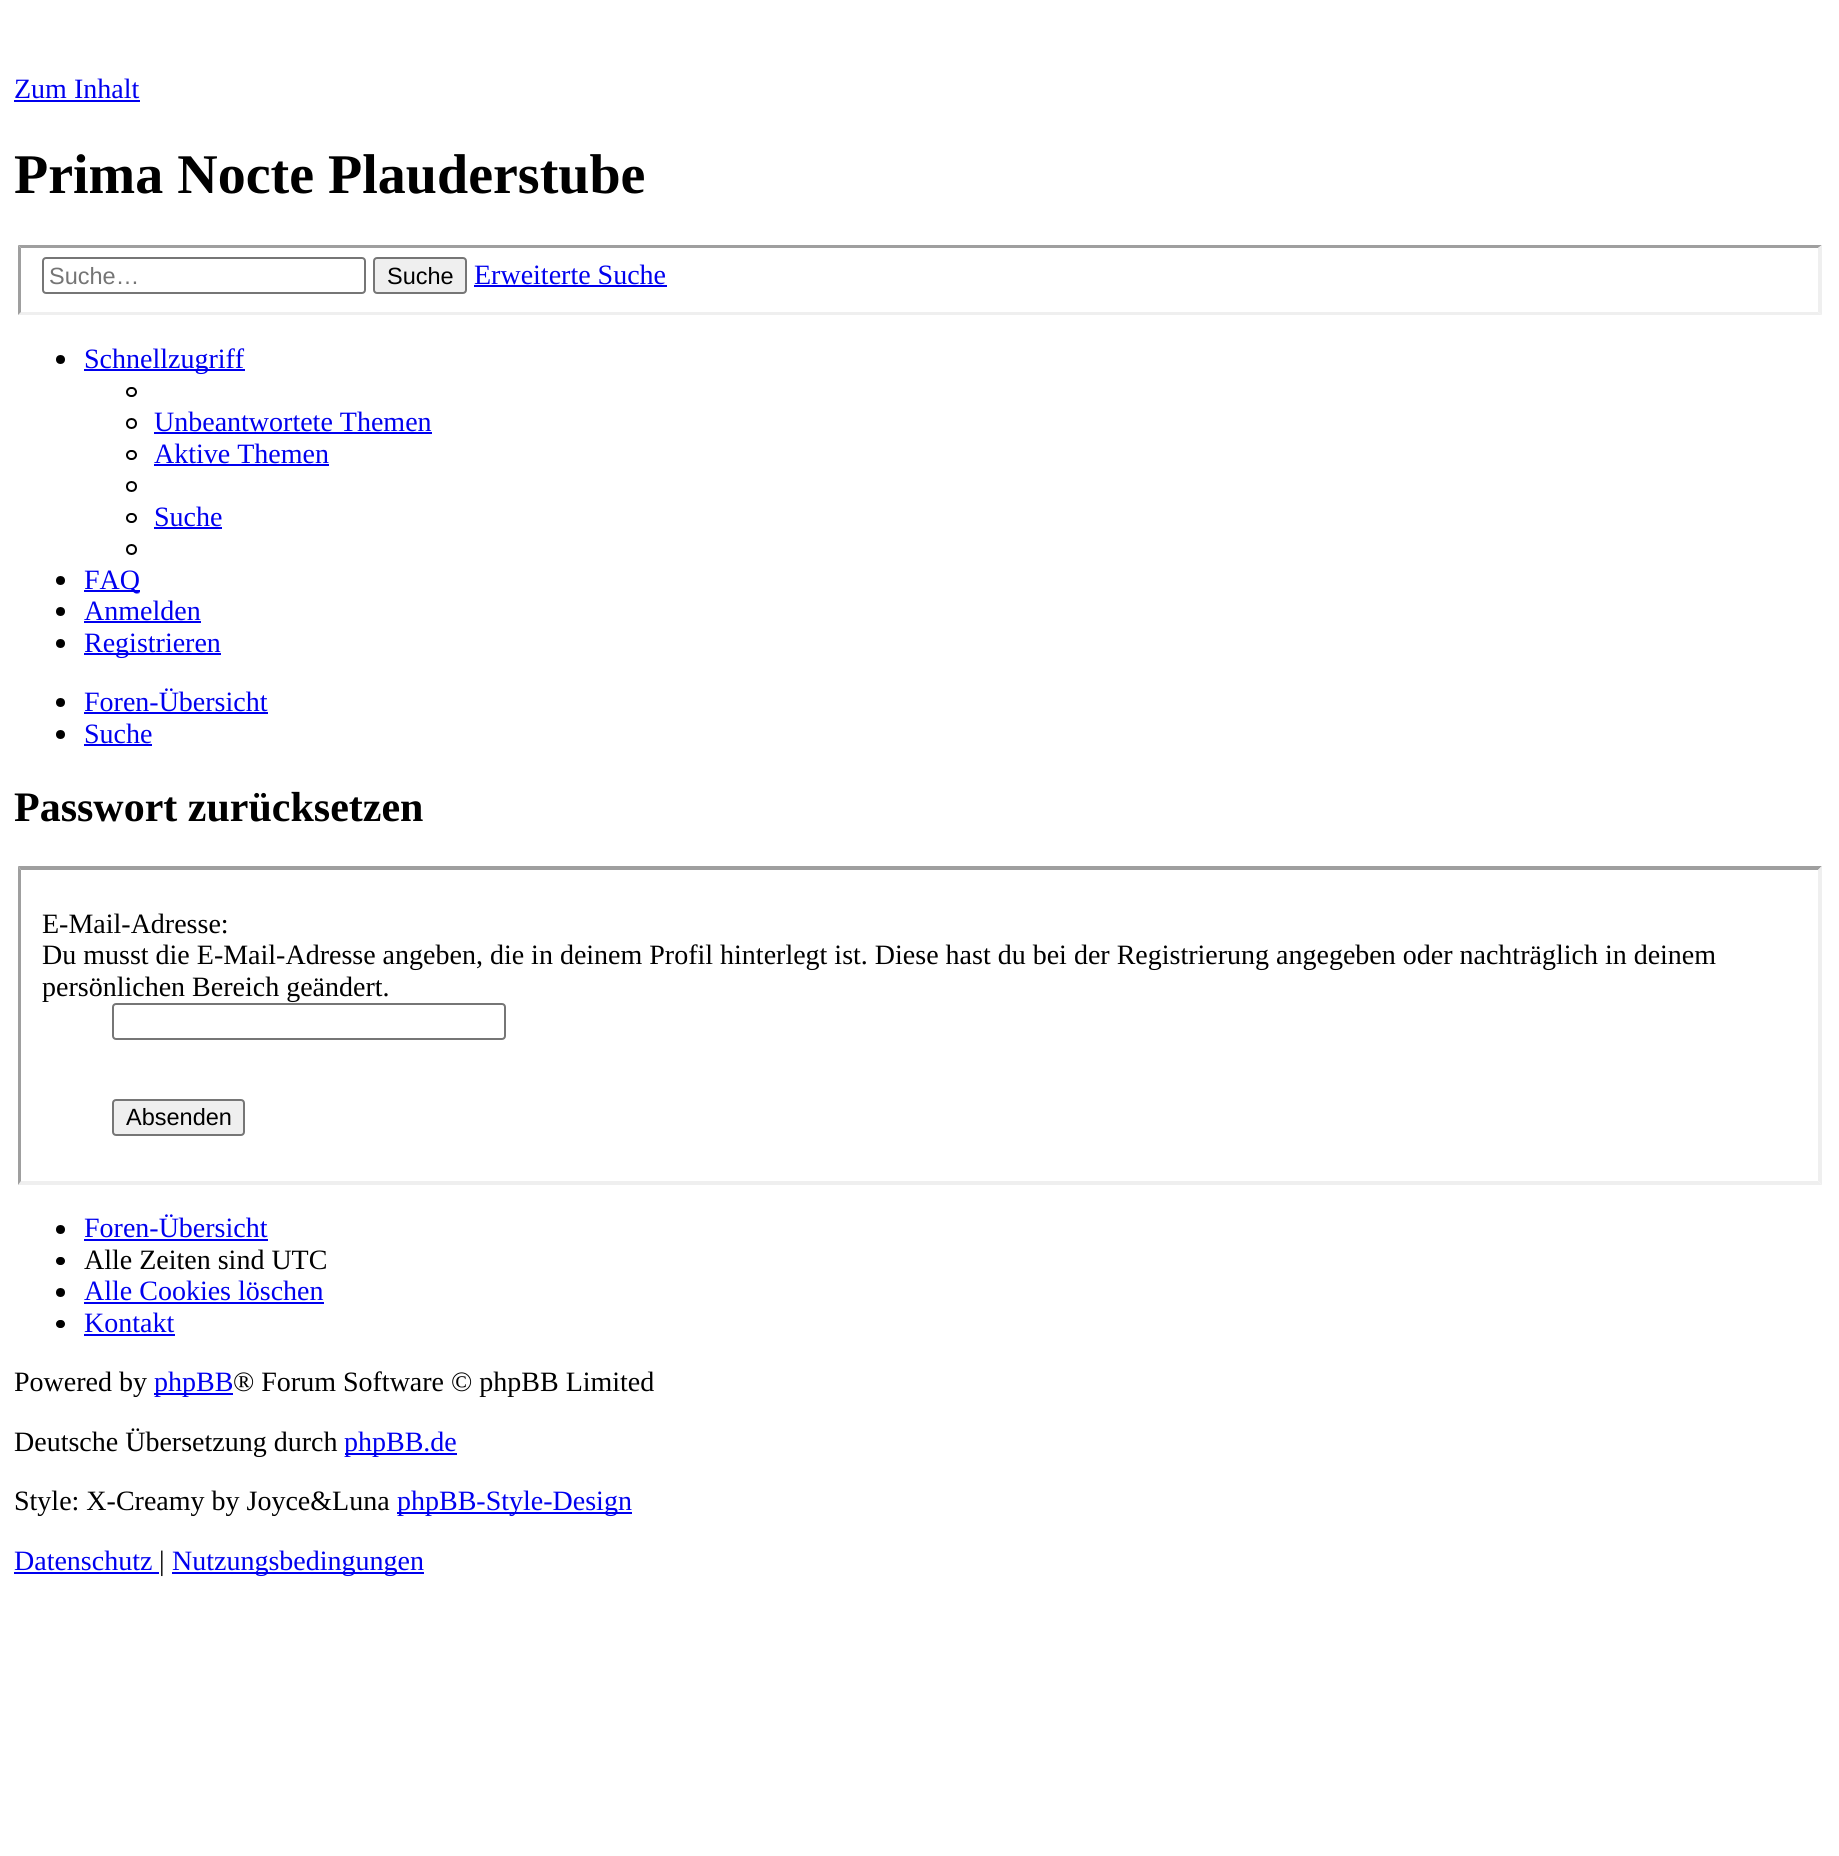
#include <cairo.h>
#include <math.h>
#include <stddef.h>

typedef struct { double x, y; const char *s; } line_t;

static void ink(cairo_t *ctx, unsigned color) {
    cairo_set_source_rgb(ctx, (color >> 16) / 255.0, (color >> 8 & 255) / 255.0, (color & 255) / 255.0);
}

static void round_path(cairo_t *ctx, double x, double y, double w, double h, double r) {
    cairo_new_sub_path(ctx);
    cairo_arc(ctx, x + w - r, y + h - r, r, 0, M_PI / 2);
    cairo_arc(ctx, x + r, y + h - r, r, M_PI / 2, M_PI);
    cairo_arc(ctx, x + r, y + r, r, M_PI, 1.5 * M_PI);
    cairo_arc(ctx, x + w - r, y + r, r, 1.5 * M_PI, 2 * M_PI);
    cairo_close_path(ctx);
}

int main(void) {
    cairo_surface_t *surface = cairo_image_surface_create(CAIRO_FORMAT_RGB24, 1839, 1856);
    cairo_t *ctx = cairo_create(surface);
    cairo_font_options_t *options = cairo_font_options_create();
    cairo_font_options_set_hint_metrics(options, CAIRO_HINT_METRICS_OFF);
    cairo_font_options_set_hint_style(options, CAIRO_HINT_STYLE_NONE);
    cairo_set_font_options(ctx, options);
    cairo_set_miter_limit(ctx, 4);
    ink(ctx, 0xFFFFFF);
    cairo_paint(ctx);
    cairo_select_font_face(ctx, "Liberation Serif", CAIRO_FONT_SLANT_NORMAL, CAIRO_FONT_WEIGHT_NORMAL);
    cairo_set_font_size(ctx, 28);
    ink(ctx, 0x0000EE);
    cairo_move_to(ctx, 14, 98);
    cairo_show_text(ctx, "Zum Inhalt");
    cairo_rectangle(ctx, 14, 100, 126, 2);
    cairo_fill(ctx);
    cairo_select_font_face(ctx, "Liberation Serif", CAIRO_FONT_SLANT_NORMAL, CAIRO_FONT_WEIGHT_BOLD);
    cairo_set_font_size(ctx, 56);
    ink(ctx, 0x000000);
    cairo_move_to(ctx, 14, 193);
    cairo_show_text(ctx, "Prima Nocte Plauderstube");
    ink(ctx, 0x9F9F9F);
    cairo_new_path(ctx);
    cairo_move_to(ctx, 18, 245);
    cairo_line_to(ctx, 1822, 245);
    cairo_line_to(ctx, 1818, 248);
    cairo_line_to(ctx, 21, 248);
    cairo_close_path(ctx);
    cairo_fill(ctx);
    ink(ctx, 0xEFEFEF);
    cairo_new_path(ctx);
    cairo_move_to(ctx, 1822, 245);
    cairo_line_to(ctx, 1822, 315);
    cairo_line_to(ctx, 1818, 312);
    cairo_line_to(ctx, 1818, 248);
    cairo_close_path(ctx);
    cairo_fill(ctx);
    cairo_new_path(ctx);
    cairo_move_to(ctx, 1822, 315);
    cairo_line_to(ctx, 18, 315);
    cairo_line_to(ctx, 21, 312);
    cairo_line_to(ctx, 1818, 312);
    cairo_close_path(ctx);
    cairo_fill(ctx);
    ink(ctx, 0x9F9F9F);
    cairo_new_path(ctx);
    cairo_move_to(ctx, 18, 315);
    cairo_line_to(ctx, 18, 245);
    cairo_line_to(ctx, 21, 248);
    cairo_line_to(ctx, 21, 312);
    cairo_close_path(ctx);
    cairo_fill(ctx);
    round_path(ctx, 43, 258, 322, 35, 3);
    ink(ctx, 0x767676);
    cairo_stroke(ctx);
    cairo_select_font_face(ctx, "Liberation Sans", CAIRO_FONT_SLANT_NORMAL, CAIRO_FONT_WEIGHT_NORMAL);
    cairo_set_font_size(ctx, 23.5);
    ink(ctx, 0x757575);
    cairo_move_to(ctx, 49, 284);
    cairo_show_text(ctx, "Suche…");
    ink(ctx, 0xEFEFEF);
    round_path(ctx, 374, 258, 92, 35, 3);
    cairo_fill_preserve(ctx);
    ink(ctx, 0x767676);
    cairo_stroke(ctx);
    ink(ctx, 0x000000);
    cairo_move_to(ctx, 387, 284);
    cairo_show_text(ctx, "Suche");
    cairo_select_font_face(ctx, "Liberation Serif", CAIRO_FONT_SLANT_NORMAL, CAIRO_FONT_WEIGHT_NORMAL);
    cairo_set_font_size(ctx, 28);
    ink(ctx, 0x0000EE);
    cairo_move_to(ctx, 474, 284);
    cairo_show_text(ctx, "Erweiterte Suche");
    cairo_rectangle(ctx, 474, 285, 193, 2);
    cairo_fill(ctx);
    ink(ctx, 0x000000);
    cairo_arc(ctx, 60.5, 359.5, 4.5, 0, 2 * M_PI);
    cairo_fill(ctx);
    ink(ctx, 0x0000EE);
    cairo_rectangle(ctx, 84, 369, 161, 2);
    cairo_fill(ctx);
    cairo_move_to(ctx, 84, 368);
    cairo_show_text(ctx, "Schnellzugriff");
    round_path(ctx, 127, 388, 9, 8, 4);
    ink(ctx, 0x000000);
    cairo_stroke(ctx);
    cairo_arc(ctx, 131.5, 423.5, 4.5, 0, 2 * M_PI);
    cairo_stroke(ctx);
    ink(ctx, 0x0000EE);
    cairo_move_to(ctx, 154, 431);
    cairo_show_text(ctx, "Unbeantwortete Themen");
    cairo_rectangle(ctx, 154, 432, 278, 2);
    cairo_fill(ctx);
    round_path(ctx, 127, 451, 9, 8, 4);
    ink(ctx, 0x000000);
    cairo_stroke(ctx);
    ink(ctx, 0x0000EE);
    cairo_move_to(ctx, 154, 463);
    cairo_show_text(ctx, "Aktive Themen");
    cairo_rectangle(ctx, 154, 464, 175, 2);
    cairo_fill(ctx);
    cairo_arc(ctx, 131.5, 486.5, 4.5, 0, 2 * M_PI);
    ink(ctx, 0x000000);
    cairo_stroke(ctx);
    round_path(ctx, 127, 514, 9, 8, 4);
    cairo_stroke(ctx);
    ink(ctx, 0x0000EE);
    cairo_move_to(ctx, 154, 526);
    cairo_show_text(ctx, "Suche");
    cairo_rectangle(ctx, 154, 527, 68, 2);
    cairo_fill(ctx);
    cairo_arc(ctx, 131.5, 549.5, 4.5, 0, 2 * M_PI);
    ink(ctx, 0x000000);
    cairo_stroke(ctx);
    cairo_arc(ctx, 60.5, 580.5, 4.5, 0, 2 * M_PI);
    cairo_fill(ctx);
    ink(ctx, 0x0000EE);
    cairo_rectangle(ctx, 84, 590, 56, 2);
    cairo_fill(ctx);
    cairo_move_to(ctx, 84, 589);
    cairo_show_text(ctx, "FAQ");
    ink(ctx, 0x000000);
    cairo_new_path(ctx);
    cairo_arc(ctx, 60.5, 611.5, 4.5, 0, 2 * M_PI);
    cairo_fill(ctx);
    ink(ctx, 0x0000EE);
    cairo_move_to(ctx, 84, 620);
    cairo_show_text(ctx, "Anmelden");
    cairo_rectangle(ctx, 84, 621, 117, 2);
    cairo_fill(ctx);
    ink(ctx, 0x000000);
    cairo_arc(ctx, 60.5, 643.5, 4.5, 0, 2 * M_PI);
    cairo_fill(ctx);
    ink(ctx, 0x0000EE);
    cairo_rectangle(ctx, 84, 653, 137, 2);
    cairo_fill(ctx);
    cairo_move_to(ctx, 84, 652);
    cairo_show_text(ctx, "Registrieren");
    ink(ctx, 0x000000);
    cairo_new_path(ctx);
    cairo_arc(ctx, 60.5, 702.5, 4.5, 0, 2 * M_PI);
    cairo_fill(ctx);
    ink(ctx, 0x0000EE);
    cairo_move_to(ctx, 84, 711);
    cairo_show_text(ctx, "Foren-Übersicht");
    cairo_rectangle(ctx, 84, 712, 184, 2);
    cairo_fill(ctx);
    ink(ctx, 0x000000);
    cairo_arc(ctx, 60.5, 734.5, 4.5, 0, 2 * M_PI);
    cairo_fill(ctx);
    ink(ctx, 0x0000EE);
    cairo_move_to(ctx, 84, 743);
    cairo_show_text(ctx, "Suche");
    cairo_rectangle(ctx, 84, 744, 68, 2);
    cairo_fill(ctx);
    cairo_select_font_face(ctx, "Liberation Serif", CAIRO_FONT_SLANT_NORMAL, CAIRO_FONT_WEIGHT_BOLD);
    cairo_set_font_size(ctx, 42);
    ink(ctx, 0x000000);
    cairo_move_to(ctx, 14, 821);
    cairo_show_text(ctx, "Passwort zurücksetzen");
    ink(ctx, 0x9F9F9F);
    cairo_new_path(ctx);
    cairo_move_to(ctx, 18, 866);
    cairo_line_to(ctx, 1822, 866);
    cairo_line_to(ctx, 1818, 870);
    cairo_line_to(ctx, 21, 870);
    cairo_close_path(ctx);
    cairo_fill(ctx);
    ink(ctx, 0xEFEFEF);
    cairo_new_path(ctx);
    cairo_move_to(ctx, 1822, 866);
    cairo_line_to(ctx, 1822, 1185);
    cairo_line_to(ctx, 1818, 1181);
    cairo_line_to(ctx, 1818, 870);
    cairo_close_path(ctx);
    cairo_fill(ctx);
    cairo_new_path(ctx);
    cairo_move_to(ctx, 1822, 1185);
    cairo_line_to(ctx, 18, 1185);
    cairo_line_to(ctx, 21, 1181);
    cairo_line_to(ctx, 1818, 1181);
    cairo_close_path(ctx);
    cairo_fill(ctx);
    ink(ctx, 0x9F9F9F);
    cairo_new_path(ctx);
    cairo_move_to(ctx, 18, 1185);
    cairo_line_to(ctx, 18, 866);
    cairo_line_to(ctx, 21, 870);
    cairo_line_to(ctx, 21, 1181);
    cairo_close_path(ctx);
    cairo_fill(ctx);
    cairo_select_font_face(ctx, "Liberation Serif", CAIRO_FONT_SLANT_NORMAL, CAIRO_FONT_WEIGHT_NORMAL);
    cairo_set_font_size(ctx, 28);
    ink(ctx, 0x000000);
    {
        static const line_t items[] = {
            {42, 933, "E-Mail-Adresse:"},
            {42, 964, "Du musst die E-Mail-Adresse angeben, die in deinem Profil hinterlegt ist. Diese hast du bei der Registrierung angegeben oder nachträglich in deinem"},
            {42, 996, "persönlichen Bereich geändert."},
        };
        for (size_t i = 0; i < sizeof items / sizeof *items; i++) {
            cairo_move_to(ctx, items[i].x, items[i].y);
            cairo_show_text(ctx, items[i].s);
        }
    }
    round_path(ctx, 113, 1004, 392, 35, 3);
    ink(ctx, 0x767676);
    cairo_stroke(ctx);
    ink(ctx, 0xEFEFEF);
    round_path(ctx, 113, 1100, 131, 35, 3);
    cairo_fill_preserve(ctx);
    ink(ctx, 0x767676);
    cairo_stroke(ctx);
    cairo_select_font_face(ctx, "Liberation Sans", CAIRO_FONT_SLANT_NORMAL, CAIRO_FONT_WEIGHT_NORMAL);
    cairo_set_font_size(ctx, 23.5);
    ink(ctx, 0x000000);
    cairo_move_to(ctx, 126, 1125);
    cairo_show_text(ctx, "Absenden");
    cairo_new_path(ctx);
    cairo_arc(ctx, 60.5, 1229.5, 4.5, 0, 2 * M_PI);
    cairo_fill(ctx);
    cairo_select_font_face(ctx, "Liberation Serif", CAIRO_FONT_SLANT_NORMAL, CAIRO_FONT_WEIGHT_NORMAL);
    cairo_set_font_size(ctx, 28);
    ink(ctx, 0x0000EE);
    cairo_move_to(ctx, 84, 1237);
    cairo_show_text(ctx, "Foren-Übersicht");
    cairo_rectangle(ctx, 84, 1239, 184, 2);
    cairo_fill(ctx);
    ink(ctx, 0x000000);
    round_path(ctx, 56, 1257, 9, 8, 4);
    cairo_fill(ctx);
    cairo_move_to(ctx, 84, 1269);
    cairo_show_text(ctx, "Alle Zeiten sind UTC");
    cairo_new_path(ctx);
    cairo_arc(ctx, 60.5, 1292.5, 4.5, 0, 2 * M_PI);
    cairo_fill(ctx);
    ink(ctx, 0x0000EE);
    cairo_move_to(ctx, 84, 1300);
    cairo_show_text(ctx, "Alle Cookies löschen");
    cairo_rectangle(ctx, 84, 1302, 240, 2);
    cairo_fill(ctx);
    ink(ctx, 0x000000);
    round_path(ctx, 56, 1320, 9, 8, 4);
    cairo_fill(ctx);
    ink(ctx, 0x0000EE);
    cairo_move_to(ctx, 84, 1332);
    cairo_show_text(ctx, "Kontakt");
    cairo_rectangle(ctx, 84, 1334, 91, 2);
    cairo_fill(ctx);
    ink(ctx, 0x000000);
    cairo_move_to(ctx, 14, 1391);
    cairo_show_text(ctx, "Powered by");
    ink(ctx, 0x0000EE);
    cairo_rectangle(ctx, 154, 1393, 79, 2);
    cairo_fill(ctx);
    cairo_move_to(ctx, 154, 1391);
    cairo_show_text(ctx, "phpBB");
    ink(ctx, 0x000000);
    cairo_move_to(ctx, 233, 1391);
    cairo_show_text(ctx, "® Forum Software © phpBB Limited");
    cairo_move_to(ctx, 14, 1451);
    cairo_show_text(ctx, "Deutsche Übersetzung durch");
    ink(ctx, 0x0000EE);
    cairo_rectangle(ctx, 345, 1453, 112, 2);
    cairo_fill(ctx);
    cairo_move_to(ctx, 344, 1451);
    cairo_show_text(ctx, "phpBB.de");
    ink(ctx, 0x000000);
    cairo_move_to(ctx, 14, 1510);
    cairo_show_text(ctx, "Style: X-Creamy by Joyce&Luna");
    ink(ctx, 0x0000EE);
    cairo_rectangle(ctx, 397, 1512, 235, 2);
    cairo_fill(ctx);
    cairo_move_to(ctx, 397, 1510);
    cairo_show_text(ctx, "phpBB-Style-Design");
    cairo_move_to(ctx, 14, 1570);
    cairo_show_text(ctx, "Datenschutz");
    cairo_rectangle(ctx, 14, 1572, 145, 2);
    cairo_fill(ctx);
    ink(ctx, 0x000000);
    cairo_move_to(ctx, 159, 1570);
    cairo_show_text(ctx, "|");
    ink(ctx, 0x0000EE);
    cairo_rectangle(ctx, 172, 1572, 252, 2);
    cairo_fill(ctx);
    cairo_move_to(ctx, 172, 1570);
    cairo_show_text(ctx, "Nutzungsbedingungen");
    cairo_surface_write_to_png(surface, "image.png");
    cairo_font_options_destroy(options);
    cairo_destroy(ctx);
    cairo_surface_destroy(surface);
    return 0;
}
